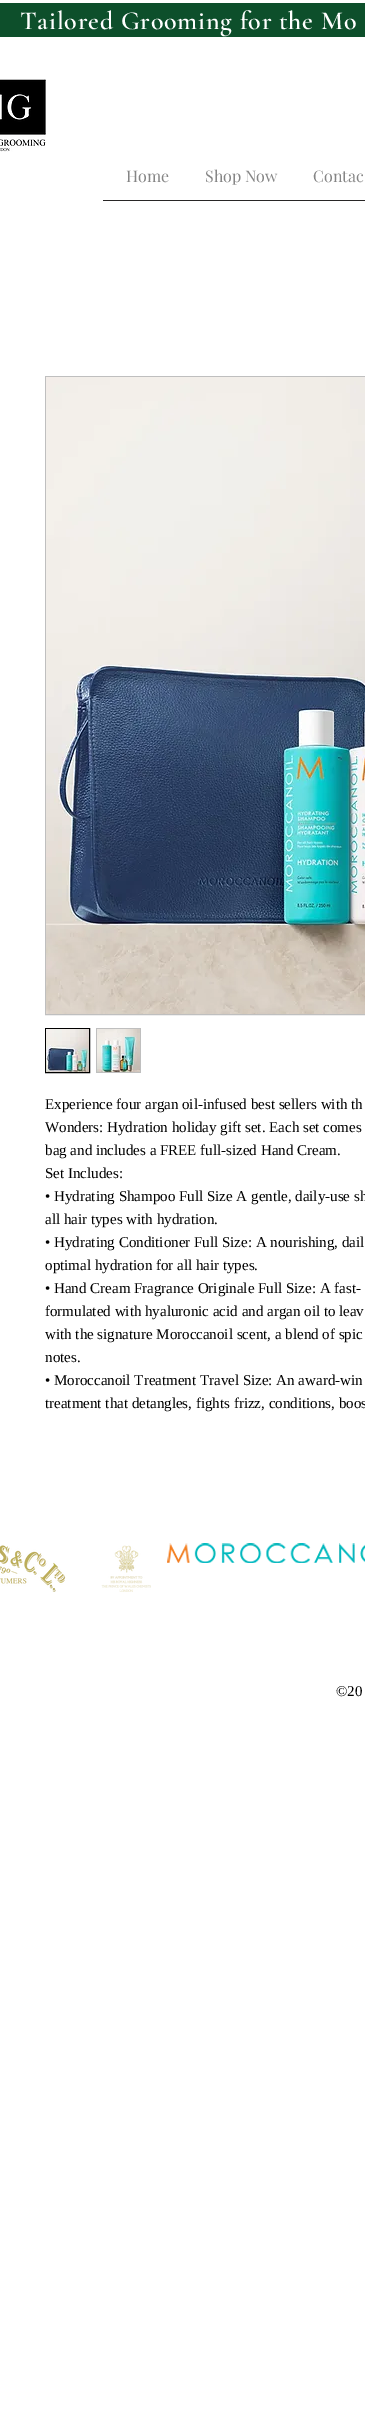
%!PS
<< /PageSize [365 2435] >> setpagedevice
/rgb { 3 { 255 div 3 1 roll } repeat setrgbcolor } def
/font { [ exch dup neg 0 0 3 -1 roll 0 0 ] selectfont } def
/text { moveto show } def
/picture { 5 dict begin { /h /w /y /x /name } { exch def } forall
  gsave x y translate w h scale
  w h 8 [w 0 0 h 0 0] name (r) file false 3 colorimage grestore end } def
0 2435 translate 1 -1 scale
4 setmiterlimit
255 255 255 rgb
0 0 365 2435 rectfill
13 79 43 rgb
0 3 365 34 rectfill
(img_01.rgb) 0 79 46 73 picture
40 38 38 rgb
103 200 262 1 rectfill
191 191 191 rgb
45.5 376.5 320 638 rectstroke
(img_02.rgb) 46 377 319 637 picture
0 0 0 rgb
45.5 1028.5 44 44 rectstroke
(img_03.rgb) 46 1029 43 43 picture
191 191 191 rgb
96 1028 45 45 rectfill
(img_04.rgb) 97 1029 43 43 picture
(img_05.rgb) 0 1545 151 47 picture
(img_06.rgb) 167 1543 198 20 picture
/CormorantGaramond-SemiBold 26 font
255 255 255 rgb
20 29 moveto 0.75 0 (Tailored Grooming for the Mo) ashow
/PlayfairDisplay-Regular 16 font
133 133 133 rgb
(Home) 126 182 text
(Shop Now) 205 182 text
(Contac) 313 182 text
/LiberationSerif-Regular 15 font
0 0 0 rgb
(Experience four argan oil-infused best sellers with th) 45 1109 text
(Wonders: Hydration holiday gift set. Each set comes) 45 1132 text
(bag and includes a FREE full-sized Hand Cream.) 45 1155 text
(Set Includes:) 45 1178 text
(• Hydrating Shampoo Full Size A gentle, daily-use sh) 45 1201 text
(all hair types with hydration.) 45 1224 text
(• Hydrating Conditioner Full Size: A nourishing, dail) 45 1247 text
(optimal hydration for all hair types.) 45 1270 text
(• Hand Cream Fragrance Originale Full Size: A fast-) 45 1293 text
(formulated with hyaluronic acid and argan oil to leav) 45 1316 text
(with the signature Moroccanoil scent, a blend of spic) 45 1339 text
(notes.) 45 1362 text
(• Moroccanoil Treatment Travel Size: An award-win) 45 1385 text
(treatment that detangles, fights frizz, conditions, boos) 45 1408 text
(©20) 336 1696 text
showpage
